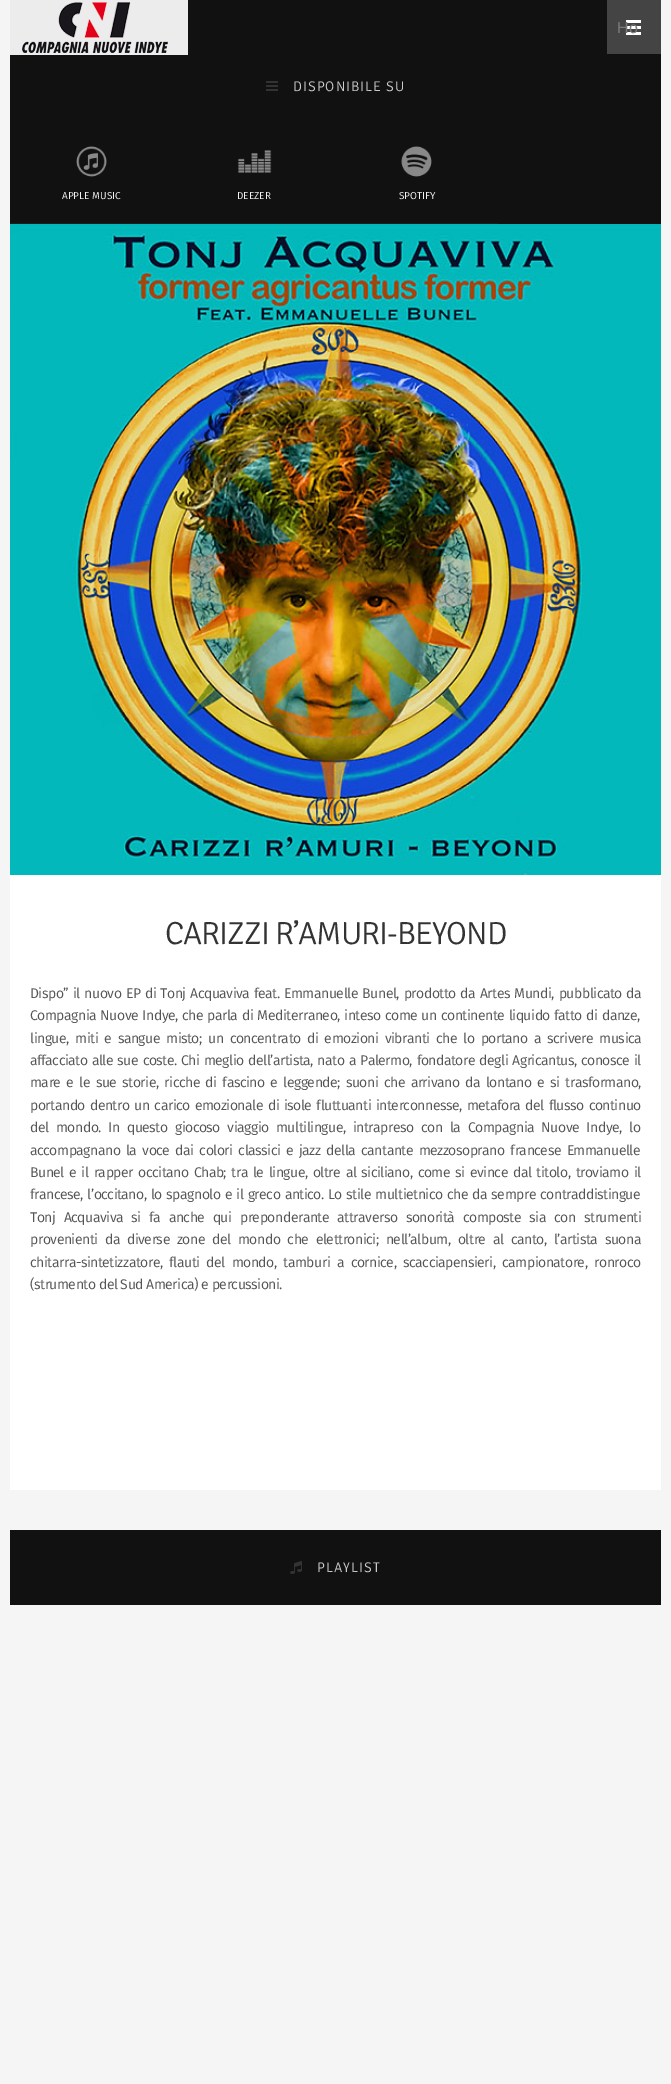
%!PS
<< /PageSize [671 2084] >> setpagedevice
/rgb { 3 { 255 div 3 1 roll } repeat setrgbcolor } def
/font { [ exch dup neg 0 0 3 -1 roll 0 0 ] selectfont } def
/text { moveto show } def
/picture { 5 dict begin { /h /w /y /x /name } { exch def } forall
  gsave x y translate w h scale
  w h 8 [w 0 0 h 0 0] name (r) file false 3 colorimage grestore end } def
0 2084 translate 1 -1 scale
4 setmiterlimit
245 245 245 rgb
0 0 671 2084 rectfill
17 17 17 rgb
188 0 473 55 rectfill
236 236 236 rgb
10 0 178 55 rectfill
(img_01.rgb) 22 2 146 51 picture
68 68 68 rgb
607 0 54 54 rectfill
(img_02.rgb) 626 20 15 15 picture
17 17 17 rgb
10 55 651 169 rectfill
(img_03.rgb) 266 81 12 10 picture
29 29 29 rgb
10 223 488 1 rectfill
(img_04.rgb) 76 146 31 31 picture
(img_05.rgb) 238 150 34 23 picture
(img_06.rgb) 401 146 31 31 picture
255 255 255 rgb
10 875 651 615 rectfill
(img_07.rgb) 10 224 651 651 picture
17 17 17 rgb
10 1530 651 75 rectfill
(img_08.rgb) 290 1561 12 13 picture
/LiberationSans-Regular 16 font
122 122 122 rgb
(Ho) 617 33 text
/Signika-Light 14 font
204 204 204 rgb
293 91 moveto 1 0 (DISPONIBILE SU) ashow
/FiraSans-Regular 10 font
241 241 241 rgb
(APPLE MUSIC) 62 199 text
(DEEZER) 237 199 text
(SPOTIFY) 399 199 text
/Signika-Light 32 font
51 51 51 rgb
165 944 moveto -1 0 (CARIZZI R’AMURI-BEYOND) ashow
/FiraSans-Regular 14 font
85 85 85 rgb
30 998 moveto 1.25 0 32 -0.5 0 (Dispo” il nuovo EP di Tonj Acquaviva feat. Emmanuelle Bunel, prodotto da Artes Mundi, pubblicato da) awidthshow
30 1020 moveto 1 0 32 -0.5 0 (Compagnia Nuove Indye, che parla di Mediterraneo, inteso come un continente liquido fatto di danze,) awidthshow
30 1043 moveto 3 0 32 -0.5 0 (lingue, miti e sangue misto; un concentrato di emozioni vibranti che lo portano a scrivere musica) awidthshow
30 1065 moveto 1.1 0 32 -0.5 0 (affacciato alle sue coste. Chi meglio dell’artista, nato a Palermo, fondatore degli Agricantus, conosce il) awidthshow
30 1087 moveto 2.5 0 32 -0.5 0 (mare e le sue storie, ricche di fascino e leggende; suoni che arrivano da lontano e si trasformano,) awidthshow
30 1110 moveto 1.6 0 32 -0.5 0 (portando dentro un carico emozionale di isole fluttuanti interconnesse, metafora del flusso continuo) awidthshow
30 1132 moveto 4.1 0 32 -0.5 0 (del mondo. In questo giocoso viaggio multilingue, intrapreso con la Compagnia Nuove Indye, lo) awidthshow
30 1155 moveto 2.5 0 32 -0.5 0 (accompagnano la voce dai colori classici e jazz della cantante mezzosoprano francese Emmanuelle) awidthshow
30 1177 moveto 1.9 0 32 -0.5 0 (Bunel e il rapper occitano Chab; tra le lingue, oltre al siciliano, come si evince dal titolo, troviamo il) awidthshow
30 1199 moveto 1.1 0 32 -0.5 0 (francese, l’occitano, lo spagnolo e il greco antico. Lo stile multietnico che da sempre contraddistingue) awidthshow
30 1222 moveto 5.1 0 32 -0.5 0 (Tonj Acquaviva si fa anche qui preponderante attraverso sonorità composte sia con strumenti) awidthshow
30 1244 moveto 4 0 32 -0.5 0 (provenienti da diverse zone del mondo che elettronici; nell’album, oltre al canto, l’artista suona) awidthshow
30 1267 moveto 3.5 0 32 -0.5 0 (chitarra-sintetizzatore, flauti del mondo, tamburi a cornice, scacciapensieri, campionatore, ronroco) awidthshow
30 1289 moveto -0.5 0 (\(strumento del Sud America\) e percussioni.) ashow
/Signika-Light 14 font
204 204 204 rgb
317 1572 moveto 1 0 (PLAYLIST) ashow
showpage
